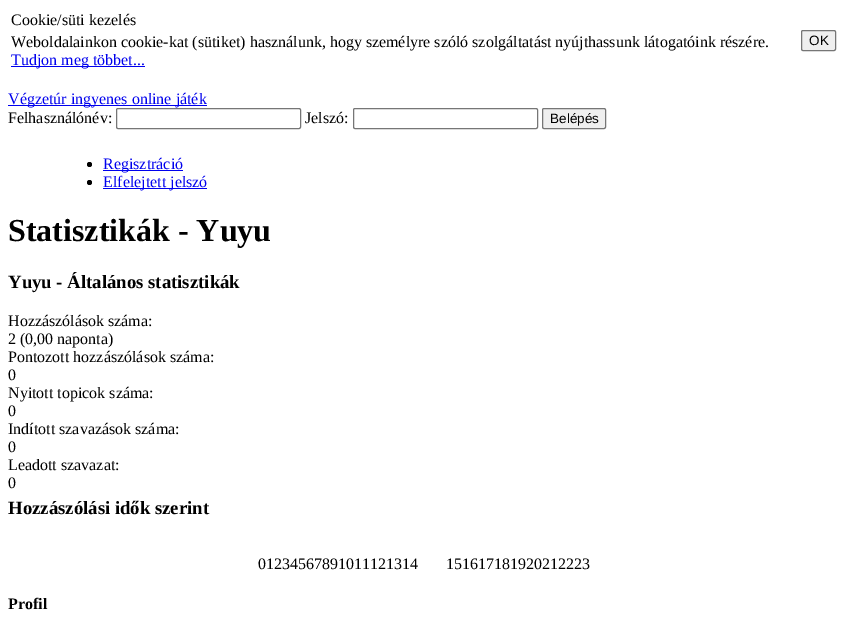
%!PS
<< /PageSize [847 643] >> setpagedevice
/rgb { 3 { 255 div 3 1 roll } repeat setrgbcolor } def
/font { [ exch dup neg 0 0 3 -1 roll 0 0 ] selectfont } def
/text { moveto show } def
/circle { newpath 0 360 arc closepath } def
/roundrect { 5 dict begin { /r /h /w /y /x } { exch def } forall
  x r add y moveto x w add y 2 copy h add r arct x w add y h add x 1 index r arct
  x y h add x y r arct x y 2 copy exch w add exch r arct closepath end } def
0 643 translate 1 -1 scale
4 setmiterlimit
255 255 255 rgb
0 0 847 643 rectfill
239 239 239 rgb
801.5 30.5 34 20 1.5 roundrect gsave fill grestore
118 118 118 rgb
stroke
0 0 238 rgb
11 66 134 1 rectfill
8 105 199 1 rectfill
118 118 118 rgb
116.5 108.5 184 20 1.5 roundrect stroke
353.5 108.5 184 20 1.5 roundrect stroke
239 239 239 rgb
542.5 108.5 63 20 1.5 roundrect gsave fill grestore
118 118 118 rgb
stroke
0 0 0 rgb
89.5 164.5 2.5 circle fill
0 0 238 rgb
103 170 80 1 rectfill
0 0 0 rgb
89.5 182.5 2.5 circle fill
0 0 238 rgb
103 188 104 1 rectfill
/LiberationSerif-Regular 16 font
0 0 0 rgb
(Cookie/süti kezelés) 11 25 text
/LiberationSans-Regular 13.5 font
(OK) 809 45 text
/LiberationSerif-Regular 16 font
(Weboldalainkon cookie-kat \(sütiket\) használunk, hogy személyre szóló szolgáltatást nyújthassunk látogatóink részére.) 11 47 text
0 0 238 rgb
(Tudjon meg többet...) 11 65 text
(Végzetúr ingyenes online játék) 8 104 text
0 0 0 rgb
(Felhasználónév:) 8 123 text
(Jelszó:) 305 123 text
/LiberationSans-Regular 13.5 font
(Belépés) 550 123 text
/LiberationSerif-Regular 16 font
0 0 238 rgb
(Regisztráció) 103 169 text
(Elfelejtett jelszó) 103 187 text
/LiberationSerif-Bold 32 font
0 0 0 rgb
(Statisztikák - Yuyu) 8 241 text
/LiberationSerif-Bold 18.75 font
(Yuyu - Általános statisztikák) 8 288 text
/LiberationSerif-Regular 16 font
(Hozzászólások száma:) 8 326 text
(2 \(0,00 naponta\)) 8 344 text
(Pontozott hozzászólások száma:) 8 362 text
(0) 8 380 text
(Nyitott topicok száma:) 8 398 text
(0) 8 416 text
(Indított szavazások száma:) 8 434 text
(0) 8 452 text
(Leadott szavazat:) 8 470 text
(0) 8 488 text
/LiberationSerif-Bold 18.75 font
(Hozzászólási idők szerint) 8 514 text
/LiberationSerif-Regular 16 font
(01234567891011121314) 258 569 text
(151617181920212223) 446 569 text
/LiberationSerif-Bold 16 font
(Profil) 8 609 text
showpage
